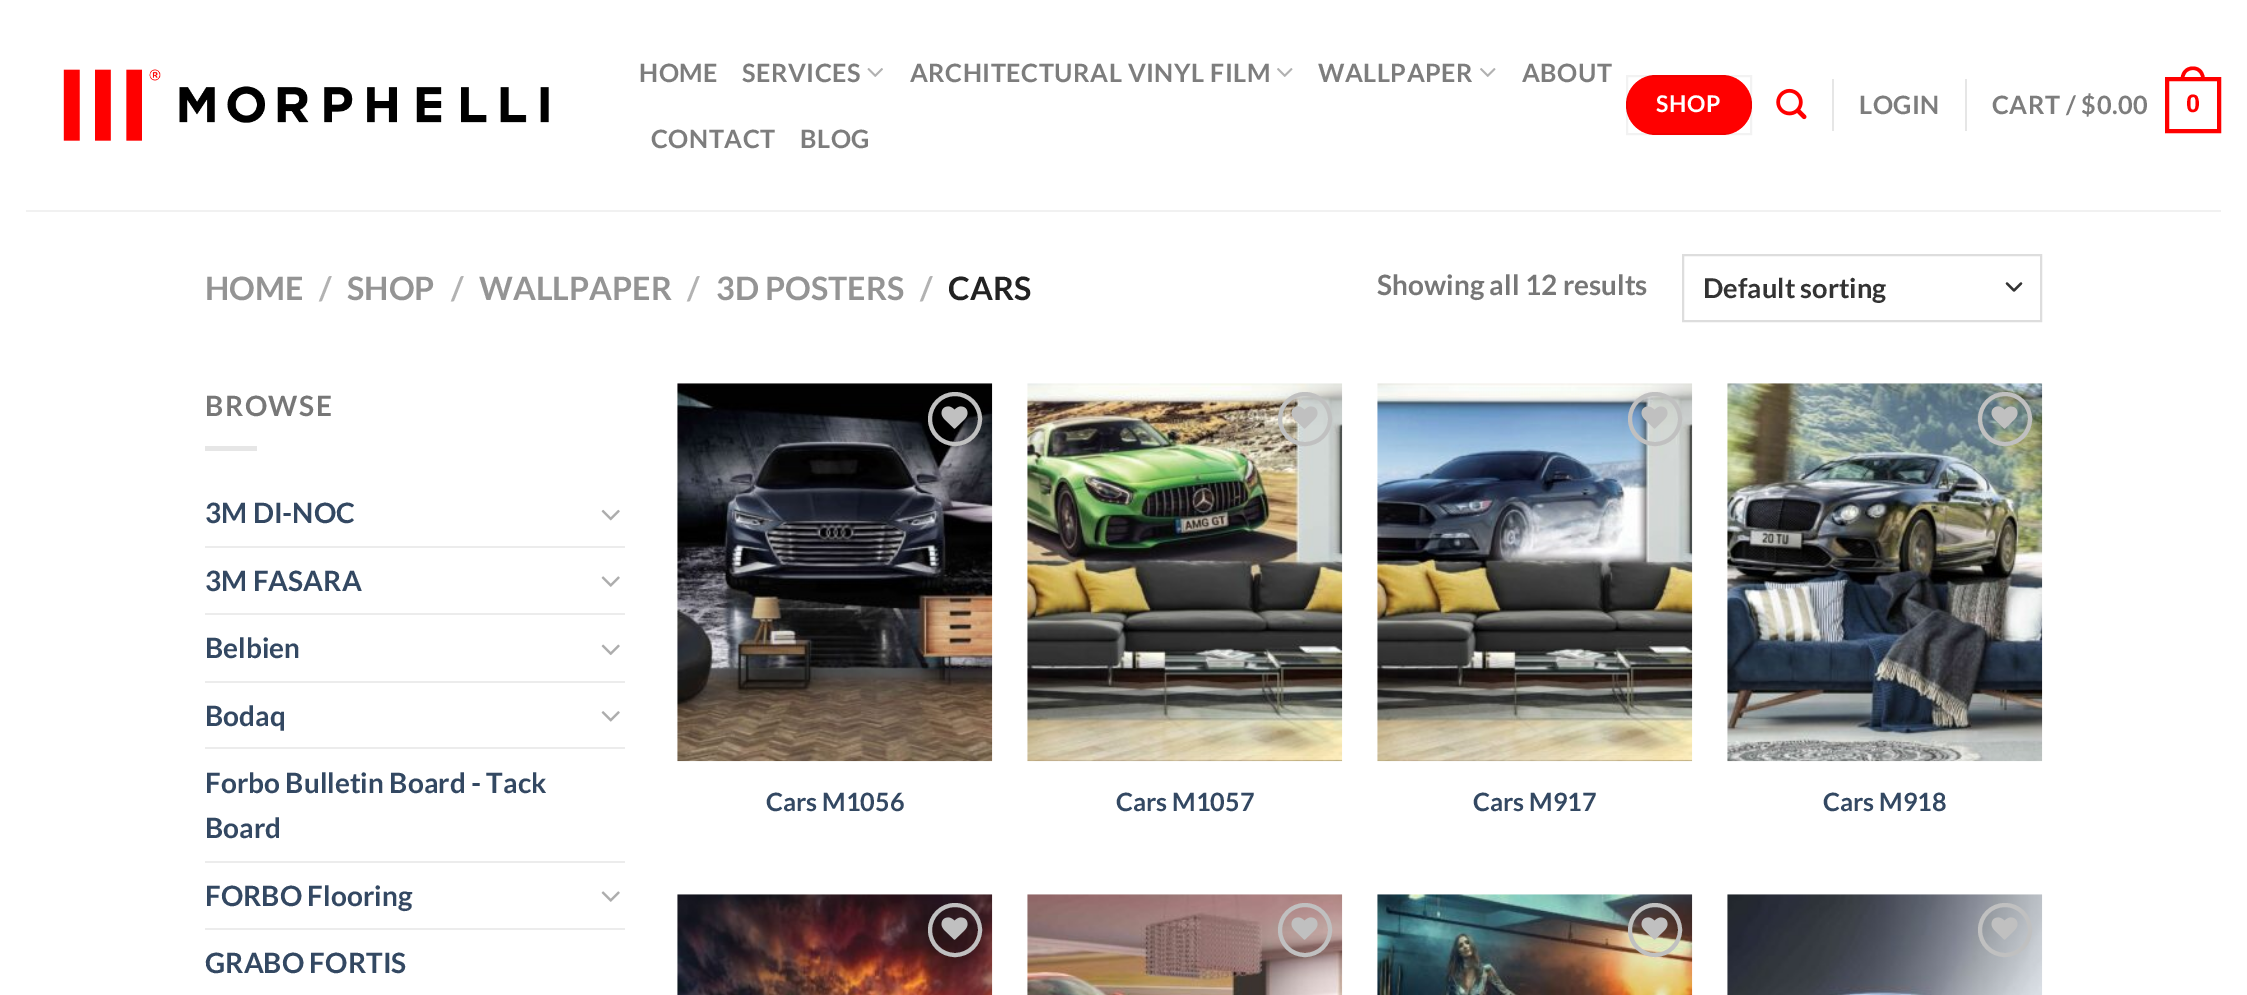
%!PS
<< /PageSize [2247 995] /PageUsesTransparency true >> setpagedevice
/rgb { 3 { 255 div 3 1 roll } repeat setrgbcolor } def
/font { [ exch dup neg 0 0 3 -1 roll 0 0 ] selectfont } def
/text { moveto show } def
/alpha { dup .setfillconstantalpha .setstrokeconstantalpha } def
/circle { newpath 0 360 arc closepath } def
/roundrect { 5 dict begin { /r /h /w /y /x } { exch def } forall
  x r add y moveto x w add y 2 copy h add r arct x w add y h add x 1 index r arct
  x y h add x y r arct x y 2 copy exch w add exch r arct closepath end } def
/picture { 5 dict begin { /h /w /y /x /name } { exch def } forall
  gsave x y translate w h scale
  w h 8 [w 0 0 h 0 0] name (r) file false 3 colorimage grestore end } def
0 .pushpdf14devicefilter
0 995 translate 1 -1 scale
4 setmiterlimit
255 255 255 rgb
0 0 2247 995 rectfill
(img_01.rgb) 63 69 486 72 picture
(img_02.rgb) 867 68 16 9 picture
(img_03.rgb) 1277 68 16 9 picture
(img_03.rgb) 1480 68 16 9 picture
255 0 0 rgb
1626 75 126 60 30 roundrect fill
0.05 alpha
0 0 0 rgb
2 setlinewidth
1627 76 124 58 rectstroke
1 alpha
(img_04.rgb) 1776 88 31 32 picture
230 230 230 rgb
1832 79 2 52 rectfill
1965 79 2 52 rectfill
255 0 0 rgb
4 setlinewidth
2167 79 52 52 rectstroke
2193 66.5 moveto 8 0 12 6.5 12 14 rcurveto -24.5 0 rlineto 0 -7.5 4 -14 12.5 -14 rcurveto closepath 2193 70 moveto 6 0 8.5 5 8.5 10.5 rcurveto -17.5 0 rlineto 0 -5.5 2.5 -10.5 9 -10.5 rcurveto closepath eofill
241 241 241 rgb
26 210 2195 2 rectfill
51 51 51 rgb
2.3 setlinewidth
1 setlinecap
1 setlinejoin
2007 283.5 moveto 7 7 rlineto 7 -7 rlineto stroke
221 221 221 rgb
2 setlinewidth
0 setlinecap
0 setlinejoin
1683 255 358 66 rectstroke
230 230 230 rgb
205 446 52 5 rectfill
(img_05.rgb) 601 509 19 12 picture
236 236 236 rgb
205 546 420 2 rectfill
(img_06.rgb) 601 576 19 11 picture
205 613 420 2 rectfill
(img_07.rgb) 601 644 19 12 picture
205 681 420 2 rectfill
(img_08.rgb) 601 711 19 11 picture
205 747 420 2 rectfill
205 861 420 2 rectfill
(img_06.rgb) 601 891 19 11 picture
205 928 420 2 rectfill
(img_09.rgb) 677 383 316 379 picture
192 192 192 rgb
4 setlinewidth
955 419 25 circle stroke
(img_10.rgb) 941 406 27 23 picture
(img_11.rgb) 1027 383 316 379 picture
1305 419 25 circle stroke
(img_12.rgb) 1291 406 27 23 picture
(img_13.rgb) 1377 383 316 379 picture
1655 419 25 circle stroke
(img_14.rgb) 1641 406 27 23 picture
(img_15.rgb) 1727 383 316 379 picture
2005 419 25 circle stroke
(img_16.rgb) 1991 406 27 23 picture
(img_17.rgb) 677 894 316 101 picture
955 930 25 circle stroke
(img_18.rgb) 941 917 27 23 picture
(img_19.rgb) 1027 894 316 101 picture
1305 930 25 circle stroke
(img_20.rgb) 1291 917 27 23 picture
(img_21.rgb) 1377 894 316 101 picture
1655 930 25 circle stroke
(img_22.rgb) 1641 917 27 23 picture
(img_23.rgb) 1727 894 316 101 picture
2005 930 25 circle stroke
(img_24.rgb) 1991 917 27 23 picture
/Lato-Bold 25.25 font
125 125 125 rgb
639 82 moveto 0.5 0 (HOME) ashow
742 82 moveto 0.5 0 (SERVICES) ashow
910 82 moveto 0.5 0 (ARCHITECTURAL VINYL FILM) ashow
1318 82 moveto 0.5 0 (WALLPAPER) ashow
1522 82 moveto 0.5 0 (ABOUT) ashow
651 148 moveto 0.5 0 (CONTACT) ashow
800 148 moveto 0.5 0 (BLOG) ashow
/Lato-Bold 23 font
255 255 255 rgb
1656 112 moveto 0.5 0 (SHOP) ashow
/Lato-Bold 25.25 font
125 125 125 rgb
1859 114 moveto 0.5 0 (LOGIN) ashow
1992 114 moveto 0.5 0 (CART / $0.00) ashow
/LiberationSans-Bold 25.25 font
255 0 0 rgb
2186 112 moveto 0.5 0 (0) ashow
/Lato-Bold 32.25 font
148 148 148 rgb
(HOME) 205 300 text
178 178 178 rgb
(/) 319 300 text
148 148 148 rgb
(SHOP) 347 300 text
178 178 178 rgb
(/) 451 300 text
148 148 148 rgb
(WALLPAPER) 479 300 text
178 178 178 rgb
(/) 687 300 text
148 148 148 rgb
(3D POSTERS) 716 300 text
178 178 178 rgb
(/) 920 300 text
34 34 34 rgb
(CARS) 948 300 text
/Lato-Bold 28 font
119 119 119 rgb
(Showing all 12 results) 1377 295 text
/Lato-Bold 27.25 font
51 51 51 rgb
(Default sorting) 1703 298 text
/Lato-Bold 28 font
119 119 119 rgb
205 416 moveto 1.5 0 (BROWSE) ashow
51 72 98 rgb
(3M DI-NOC) 205 523 text
(3M FASARA) 205 591 text
(Belbien) 205 658 text
(Bodaq) 205 726 text
(Forbo Bulletin Board - Tack) 205 793 text
(Board) 205 838 text
(FORBO Flooring) 205 906 text
(GRABO FORTIS) 205 973 text
/Lato-Bold 25.25 font
(Cars M1056) 766 811 text
(Cars M1057) 1116 811 text
(Cars M917) 1473 811 text
(Cars M918) 1823 811 text
.poppdf14devicefilter showpage
